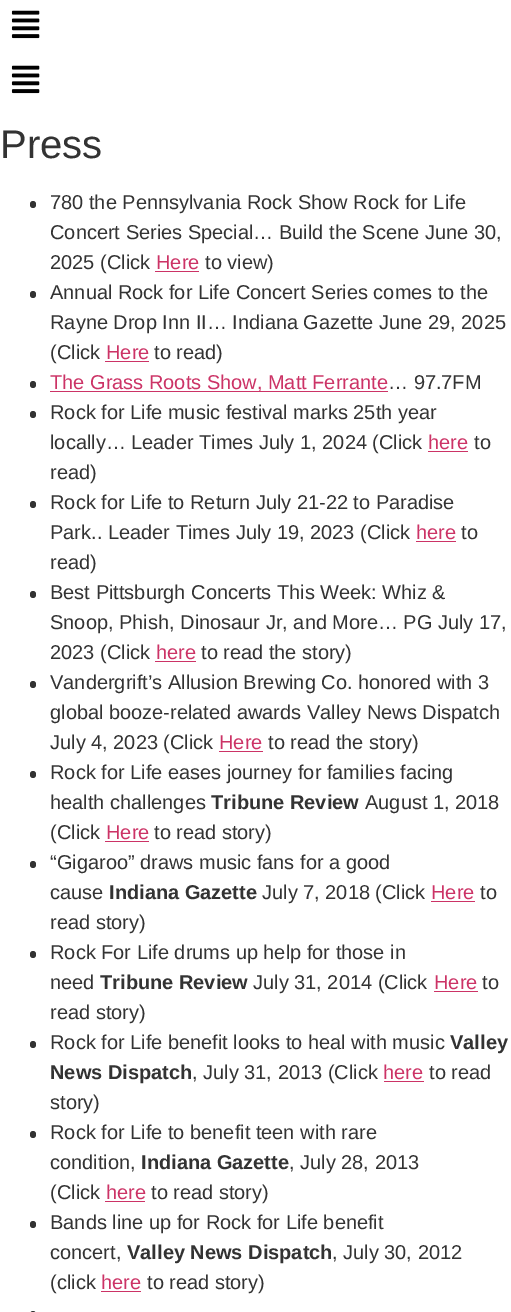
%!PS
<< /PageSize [511 1312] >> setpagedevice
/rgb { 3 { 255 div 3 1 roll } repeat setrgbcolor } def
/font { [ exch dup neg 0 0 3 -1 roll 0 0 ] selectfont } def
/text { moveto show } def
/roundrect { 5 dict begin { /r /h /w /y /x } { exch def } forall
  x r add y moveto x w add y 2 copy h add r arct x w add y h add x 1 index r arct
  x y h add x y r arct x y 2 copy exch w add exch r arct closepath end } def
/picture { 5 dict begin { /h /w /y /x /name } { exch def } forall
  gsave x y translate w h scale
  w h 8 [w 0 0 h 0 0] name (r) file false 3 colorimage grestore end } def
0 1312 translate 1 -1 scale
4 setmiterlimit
255 255 255 rgb
0 0 511 1312 rectfill
(img_01.rgb) 11 10 29 29 picture
(img_01.rgb) 11 65 29 29 picture
51 51 51 rgb
30 201 6 7 3 roundrect fill
204 51 102 rgb
155 271 44 1 rectfill
51 51 51 rgb
30 291 6 7 3 roundrect fill
204 51 102 rgb
105 361 44 1 rectfill
51 51 51 rgb
30 381 6 7 3 roundrect fill
204 51 102 rgb
50 391 338 1 rectfill
51 51 51 rgb
30 411 6 7 3 roundrect fill
204 51 102 rgb
428 451 40 1 rectfill
51 51 51 rgb
30 501 6 7 3 roundrect fill
204 51 102 rgb
416 541 40 1 rectfill
51 51 51 rgb
30 591 6 7 3 roundrect fill
204 51 102 rgb
155 661 41 1 rectfill
51 51 51 rgb
30 681 6 7 3 roundrect fill
204 51 102 rgb
219 751 44 1 rectfill
51 51 51 rgb
30 771 6 7 3 roundrect fill
204 51 102 rgb
105 841 44 1 rectfill
51 51 51 rgb
30 861 6 7 3 roundrect fill
204 51 102 rgb
431 901 44 1 rectfill
51 51 51 rgb
30 951 6 7 3 roundrect fill
204 51 102 rgb
434 991 44 1 rectfill
51 51 51 rgb
30 1041 6 7 3 roundrect fill
204 51 102 rgb
384 1081 40 1 rectfill
51 51 51 rgb
30 1131 6 7 3 roundrect fill
204 51 102 rgb
105 1201 40 1 rectfill
51 51 51 rgb
30 1221 6 7 3 roundrect fill
204 51 102 rgb
101 1291 40 1 rectfill
51 51 51 rgb
30 1311 6 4 3 roundrect fill
/LiberationSans-Regular 40 font
(Press) 0 158 text
/LiberationSans-Regular 20 font
(780 the Pennsylvania Rock Show Rock for Life) 50 209 text
(Concert Series Special… Build the Scene June 30,) 50 239 text
(2025 \(Click) 50 269 text
204 51 102 rgb
(Here) 156 269 text
51 51 51 rgb
(to view\)) 205 269 text
(Annual Rock for Life Concert Series comes to the) 50 299 text
(Rayne Drop Inn II… Indiana Gazette June 29, 2025) 50 329 text
(\(Click) 50 359 text
204 51 102 rgb
(Here) 106 359 text
51 51 51 rgb
(to read\)) 154 359 text
204 51 102 rgb
(The Grass Roots Show, Matt Ferrante) 50 389 text
51 51 51 rgb
(… 97.7FM) 388 389 text
(Rock for Life music festival marks 25th year) 50 419 text
(locally… Leader Times July 1, 2024 \(Click) 50 449 text
204 51 102 rgb
(here) 428 449 text
51 51 51 rgb
(to) 474 449 text
(read\)) 50 479 text
(Rock for Life to Return July 21-22 to Paradise) 50 509 text
(Park.. Leader Times July 19, 2023 \(Click) 50 539 text
204 51 102 rgb
(here) 416 539 text
51 51 51 rgb
(to) 461 539 text
(read\)) 50 569 text
(Best Pittsburgh Concerts This Week: Whiz &) 50 599 text
(Snoop, Phish, Dinosaur Jr, and More… PG July 17,) 50 629 text
(2023 \(Click) 50 659 text
204 51 102 rgb
(here) 156 659 text
51 51 51 rgb
(to read the story\)) 201 659 text
(Vandergrift’s Allusion Brewing Co. honored with 3) 50 689 text
(global booze-related awards Valley News Dispatch) 50 719 text
(July 4, 2023 \(Click) 50 749 text
204 51 102 rgb
(Here) 219 749 text
51 51 51 rgb
(to read the story\)) 268 749 text
(Rock for Life eases journey for families facing) 50 779 text
(health challenges) 50 809 text
/LiberationSans-Bold 20 font
(Tribune Review) 211 809 text
/LiberationSans-Regular 20 font
(August 1, 2018) 365 809 text
(\(Click) 50 839 text
204 51 102 rgb
(Here) 106 839 text
51 51 51 rgb
(to read story\)) 154 839 text
(“Gigaroo” draws music fans for a good) 50 869 text
(cause) 50 899 text
/LiberationSans-Bold 20 font
(Indiana Gazette) 109 899 text
/LiberationSans-Regular 20 font
(July 7, 2018 \(Click) 262 899 text
204 51 102 rgb
(Here) 431 899 text
51 51 51 rgb
(to) 480 899 text
(read story\)) 50 929 text
(Rock For Life drums up help for those in) 50 959 text
(need) 50 989 text
/LiberationSans-Bold 20 font
(Tribune Review) 100 989 text
/LiberationSans-Regular 20 font
(July 31, 2014 \(Click) 253 989 text
204 51 102 rgb
(Here) 434 989 text
51 51 51 rgb
(to) 482 989 text
(read story\)) 50 1019 text
(Rock for Life benefit looks to heal with music) 50 1049 text
/LiberationSans-Bold 20 font
(Valley) 450 1049 text
(News Dispatch) 50 1079 text
/LiberationSans-Regular 20 font
(, July 31, 2013 \(Click) 192 1079 text
204 51 102 rgb
(here) 383 1079 text
51 51 51 rgb
(to read) 429 1079 text
(story\)) 50 1109 text
(Rock for Life to benefit teen with rare) 50 1139 text
(condition,) 50 1169 text
/LiberationSans-Bold 20 font
(Indiana Gazette) 141 1169 text
/LiberationSans-Regular 20 font
(, July 28, 2013) 289 1169 text
(\(Click) 50 1199 text
204 51 102 rgb
(here) 106 1199 text
51 51 51 rgb
(to read story\)) 151 1199 text
(Bands line up for Rock for Life benefit) 50 1229 text
(concert,) 50 1259 text
/LiberationSans-Bold 20 font
(Valley News Dispatch) 127 1259 text
/LiberationSans-Regular 20 font
(, July 30, 2012) 332 1259 text
(\(click) 50 1289 text
204 51 102 rgb
(here) 101 1289 text
51 51 51 rgb
(to read story\)) 147 1289 text
showpage
